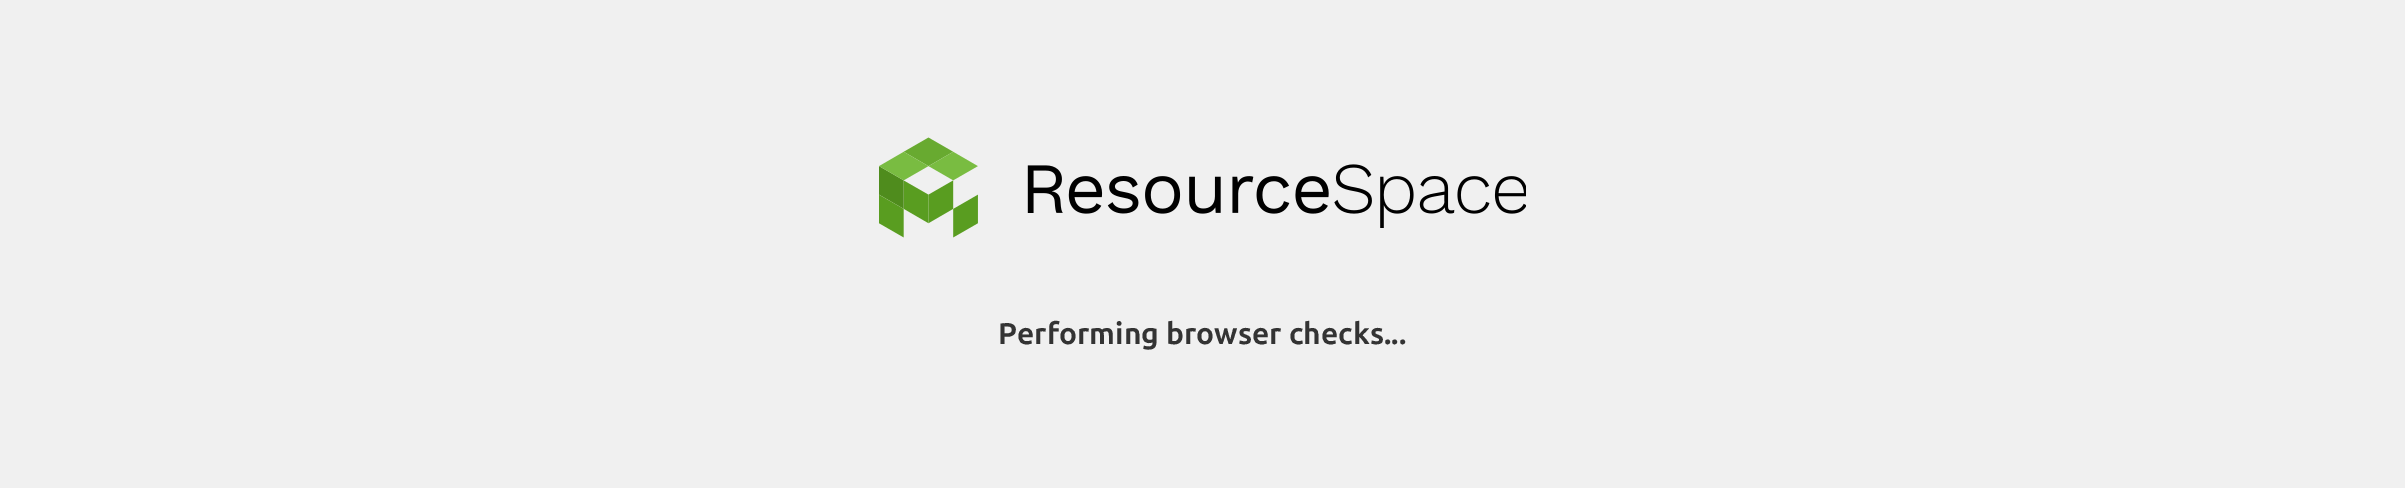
%!PS
<< /PageSize [2405 488] >> setpagedevice
/rgb { 3 { 255 div 3 1 roll } repeat setrgbcolor } def
/font { [ exch dup neg 0 0 3 -1 roll 0 0 ] selectfont } def
/text { moveto show } def
/picture { 5 dict begin { /h /w /y /x /name } { exch def } forall
  gsave x y translate w h scale
  w h 8 [w 0 0 h 0 0] name (r) file false 3 colorimage grestore end } def
0 488 translate 1 -1 scale
4 setmiterlimit
240 240 240 rgb
0 0 2405 488 rectfill
(img_01.rgb) 879 137 647 101 picture
/Ubuntu-Bold 30 font
51 51 51 rgb
(Performing browser checks...) 998 344 text
showpage
